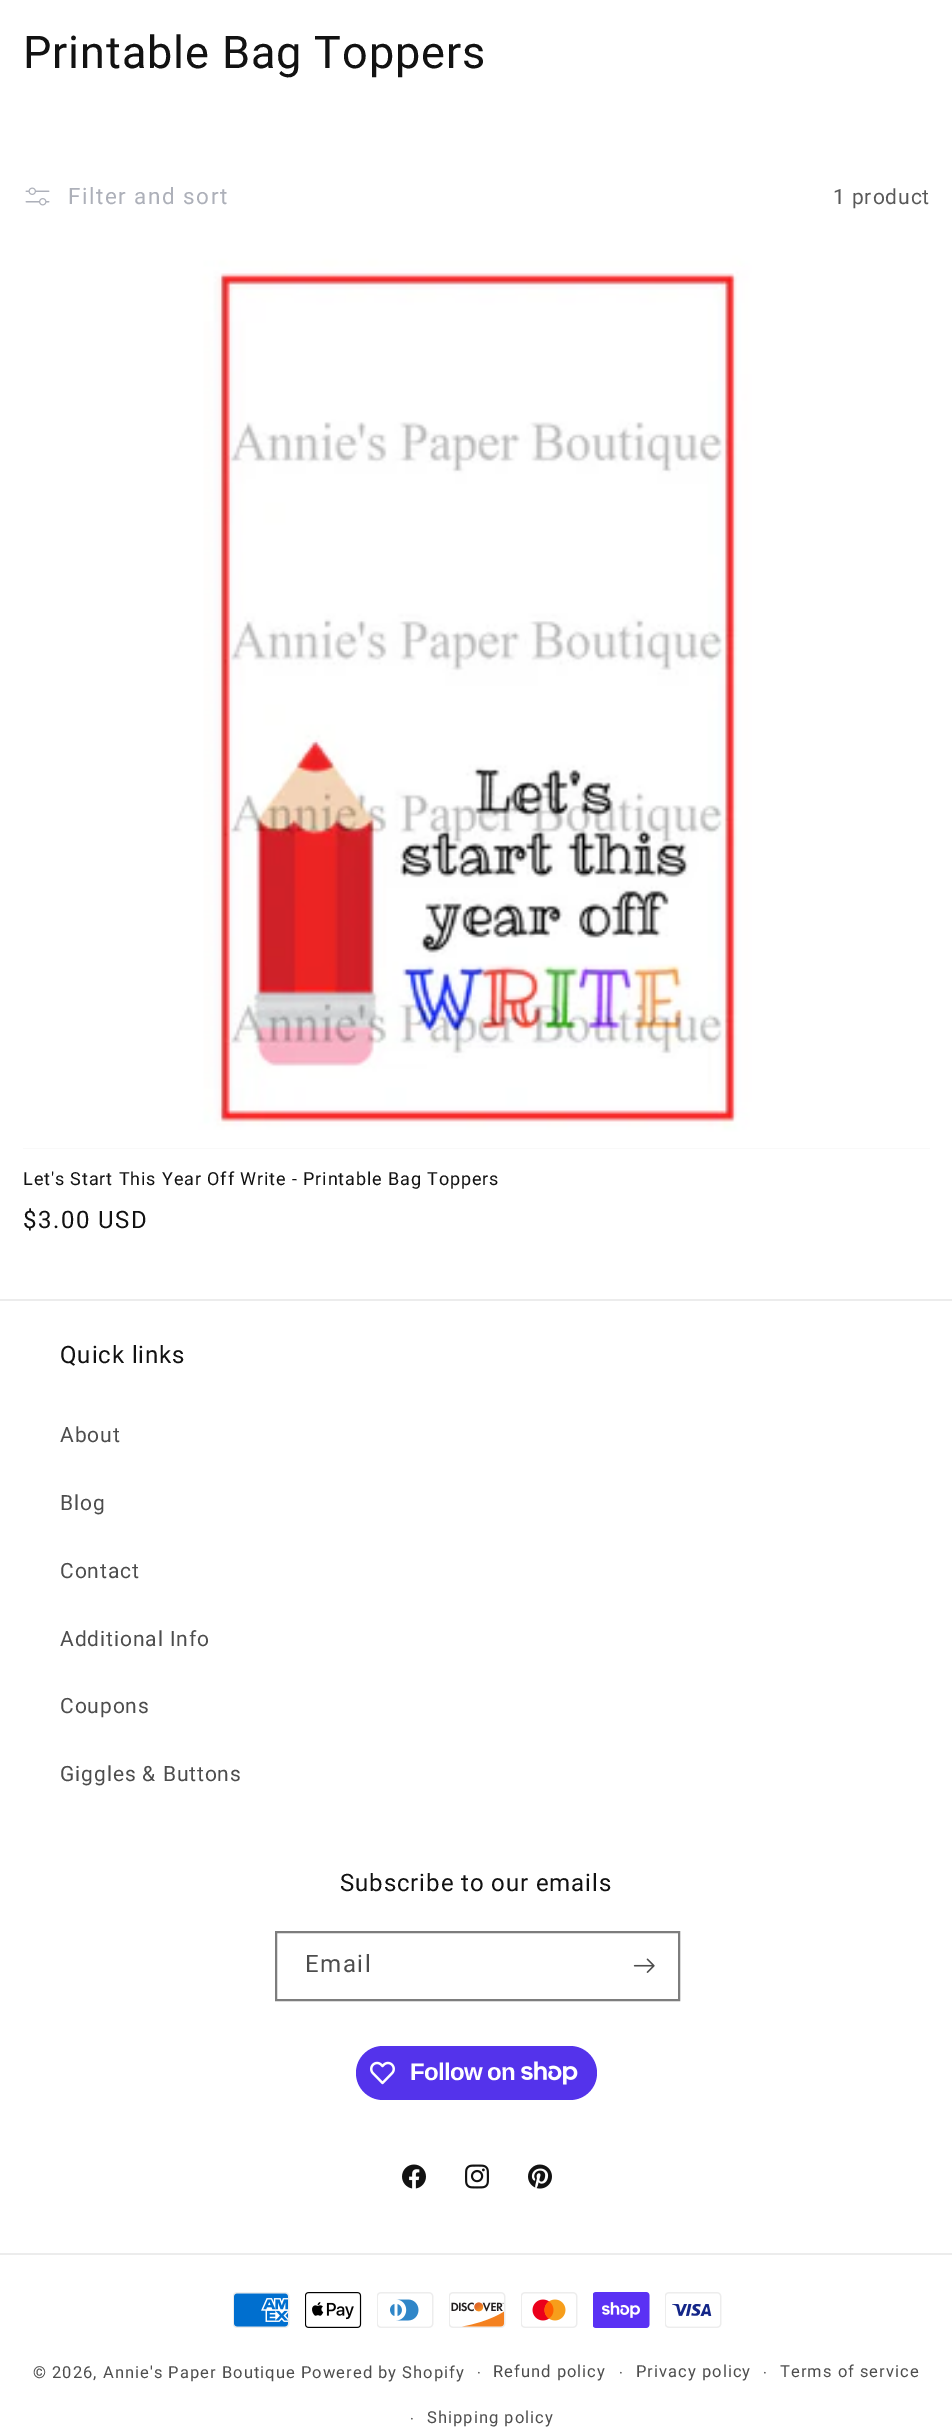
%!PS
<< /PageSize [952 2436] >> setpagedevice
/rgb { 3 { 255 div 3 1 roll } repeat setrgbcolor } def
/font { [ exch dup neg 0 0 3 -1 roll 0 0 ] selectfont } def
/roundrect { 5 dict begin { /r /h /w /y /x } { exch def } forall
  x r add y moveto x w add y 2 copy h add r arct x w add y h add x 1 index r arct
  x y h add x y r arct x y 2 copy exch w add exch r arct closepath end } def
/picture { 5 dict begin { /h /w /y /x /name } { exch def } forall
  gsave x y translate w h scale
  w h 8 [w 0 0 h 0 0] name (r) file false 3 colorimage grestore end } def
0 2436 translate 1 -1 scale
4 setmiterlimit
255 255 255 rgb
0 0 952 2436 rectfill
(img_01.rgb) 25 187 25 19 picture
243 243 243 rgb
23 1148 907 1 rectfill
(img_02.rgb) 23 242 907 907 picture
236 236 236 rgb
0 1299 952 2 rectfill
125 125 125 rgb
2 setlinewidth
276 1932 403 68 rectstroke
(img_03.rgb) 633 1958 22 15 picture
84 51 235 rgb
356 2046 241 54 27 roundrect fill
(img_04.rgb) 370 2061 25 24 picture
(img_05.rgb) 521 2061 57 24 picture
(img_06.rgb) 402 2164 24 25 picture
(img_07.rgb) 465 2164 24 25 picture
(img_08.rgb) 528 2164 24 25 picture
236 236 236 rgb
0 2253 952 2 rectfill
(img_09.rgb) 233 2292 57 36 picture
(img_10.rgb) 305 2292 57 36 picture
(img_11.rgb) 377 2292 57 36 picture
(img_12.rgb) 449 2292 57 36 picture
(img_13.rgb) 521 2292 57 36 picture
(img_14.rgb) 593 2292 57 36 picture
(img_15.rgb) 665 2292 57 36 picture
/Roboto-Regular 45 font
18 18 18 rgb
23 68 moveto 0.9 0 (Printable Bag Toppers) ashow
/Roboto-Regular 22.5 font
173 176 185 rgb
68 204 moveto 1.5 0 (Filter and sort) ashow
/Roboto-Regular 21 font
89 89 89 rgb
833 204 moveto 0.9 0 (1 product) ashow
/Roboto-Regular 18 font
18 18 18 rgb
23 1185 moveto 0.9 0 (Let's Start This Year Off Write - Printable Bag Toppers) ashow
/Roboto-Regular 24 font
23 1228 moveto 1.5 0 ($3.00 USD) ashow
60 1363 moveto 0.9 0 (Quick links) ashow
/Roboto-Regular 21 font
77 77 77 rgb
60 1442 moveto 0.9 0 (About) ashow
60 1510 moveto 0.9 0 (Blog) ashow
60 1578 moveto 0.9 0 (Contact) ashow
60 1646 moveto 0.9 0 (Additional Info) ashow
60 1713 moveto 0.9 0 (Coupons) ashow
60 1781 moveto 0.9 0 (Giggles & Buttons) ashow
/Roboto-Regular 24 font
18 18 18 rgb
340 1891 moveto 0.9 0 (Subscribe to our emails) ashow
77 77 77 rgb
305 1972 moveto 1.5 0 (Email) ashow
/LiberationSans-Bold 24 font
255 255 255 rgb
410 2080 moveto -0.75 0 (Follow on) ashow
/Roboto-Regular 16.5 font
77 77 77 rgb
33 2378 moveto 1.05 0 (© 2026, Annie's Paper Boutique) ashow
301 2378 moveto 1.05 0 (Powered by Shopify) ashow
/Roboto-Regular 15 font
477 2378 moveto 1.05 0 (·) ashow
/Roboto-Regular 16.5 font
493 2377 moveto 1.05 0 (Refund policy) ashow
/Roboto-Regular 15 font
619 2378 moveto 1.05 0 (·) ashow
/Roboto-Regular 16.5 font
636 2377 moveto 1.05 0 (Privacy policy) ashow
/Roboto-Regular 15 font
763 2378 moveto 1.05 0 (·) ashow
/Roboto-Regular 16.5 font
780 2377 moveto 1.05 0 (Terms of service) ashow
/Roboto-Regular 15 font
410 2424 moveto 1.05 0 (·) ashow
/Roboto-Regular 16.5 font
427 2423 moveto 1.05 0 (Shipping policy) ashow
showpage
